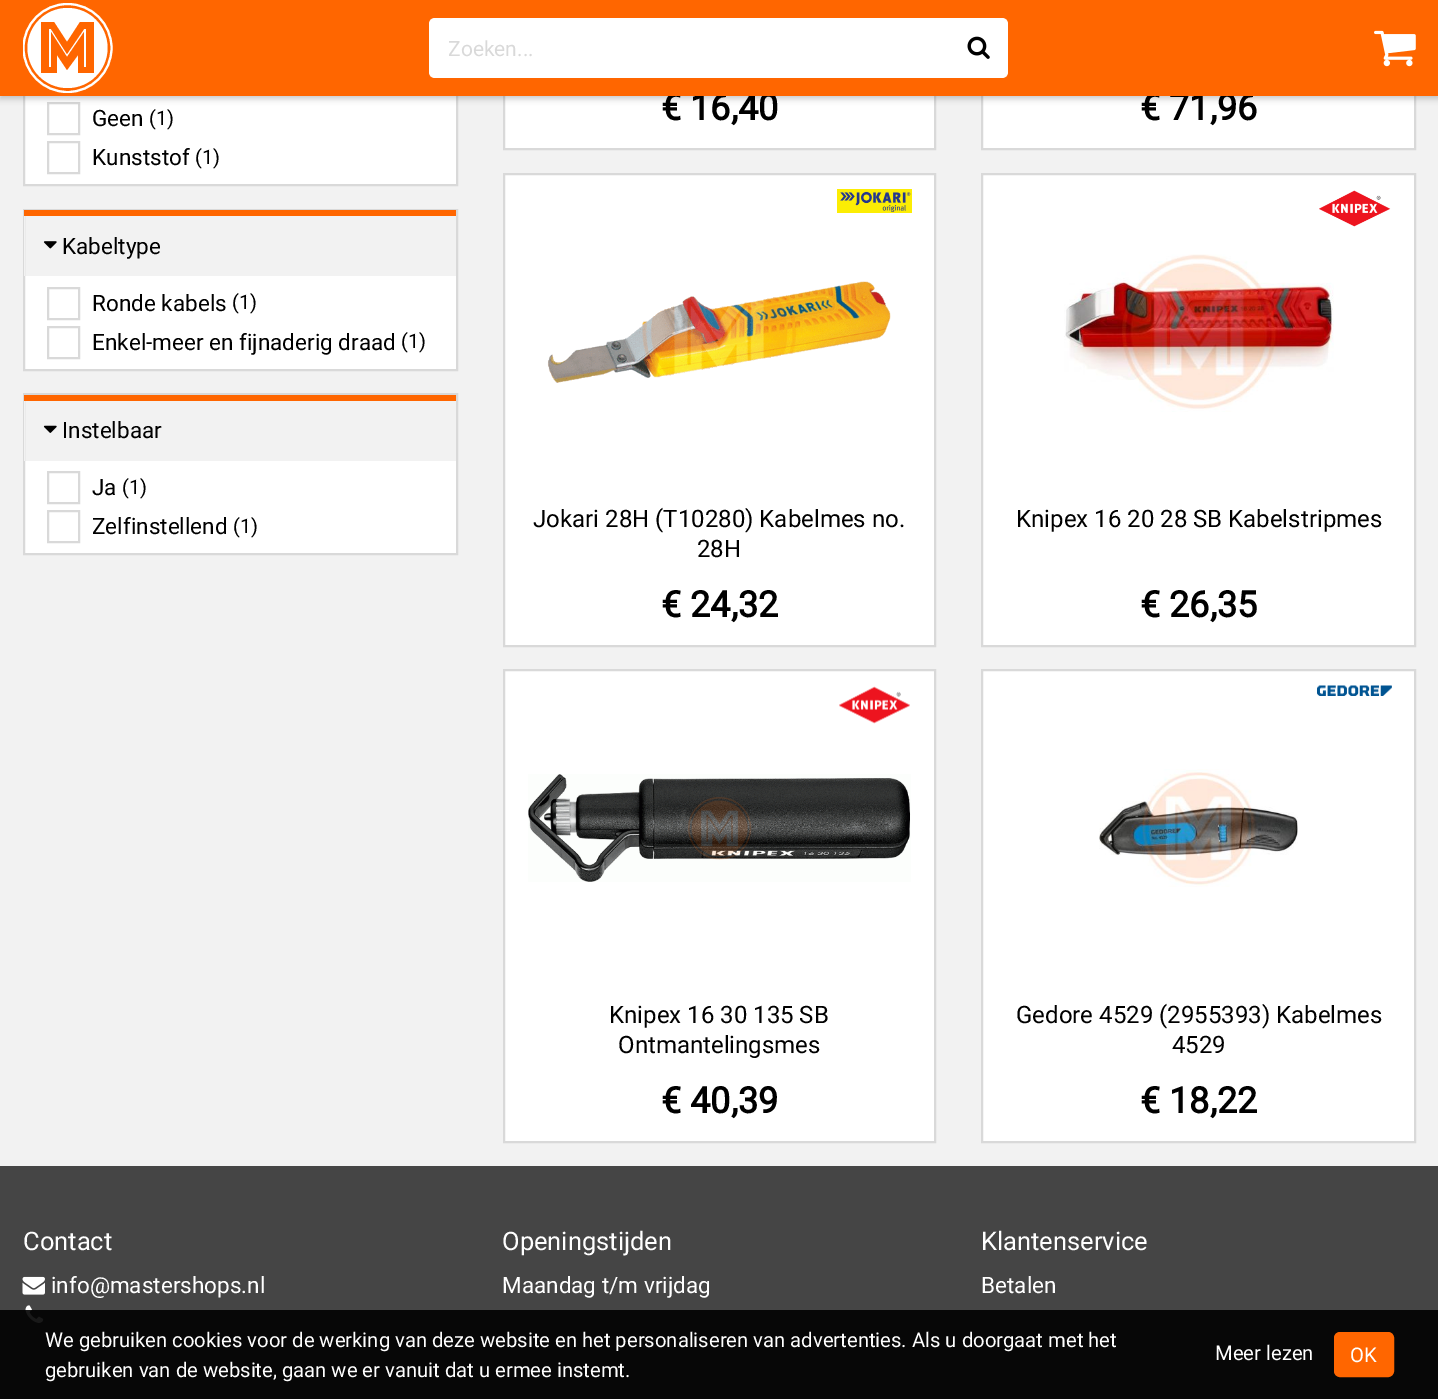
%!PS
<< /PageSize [1438 1399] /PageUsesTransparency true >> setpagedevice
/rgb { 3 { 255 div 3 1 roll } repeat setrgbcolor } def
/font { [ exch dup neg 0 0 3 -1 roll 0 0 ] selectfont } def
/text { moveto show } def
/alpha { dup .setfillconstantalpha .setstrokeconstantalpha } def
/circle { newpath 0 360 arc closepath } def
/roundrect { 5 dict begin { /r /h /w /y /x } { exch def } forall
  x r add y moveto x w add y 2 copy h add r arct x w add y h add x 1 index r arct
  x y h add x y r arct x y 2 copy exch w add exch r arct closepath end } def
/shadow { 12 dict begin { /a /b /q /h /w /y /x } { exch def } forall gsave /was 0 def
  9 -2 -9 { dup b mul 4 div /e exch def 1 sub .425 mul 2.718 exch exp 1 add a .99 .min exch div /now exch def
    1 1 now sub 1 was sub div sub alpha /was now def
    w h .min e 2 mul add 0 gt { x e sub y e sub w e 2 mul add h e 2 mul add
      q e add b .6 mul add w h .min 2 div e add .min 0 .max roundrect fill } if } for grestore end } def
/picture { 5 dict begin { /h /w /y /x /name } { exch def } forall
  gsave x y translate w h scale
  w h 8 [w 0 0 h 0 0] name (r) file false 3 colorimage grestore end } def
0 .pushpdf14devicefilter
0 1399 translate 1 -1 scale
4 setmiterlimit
242 242 242 rgb
0 0 1438 1399 rectfill
255 255 255 rgb
25 96 431 88 rectfill
217 217 217 rgb
2 setlinewidth
24 25 433 160 rectstroke
48 103 31 31 rectstroke
255 255 255 rgb
505 96 429 52 rectfill
217 217 217 rgb
504 -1 431 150 rectstroke
255 255 255 rgb
983 96 431 52 rectfill
217 217 217 rgb
982 -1 433 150 rectstroke
0 0 0 rgb
0 3 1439 96 0 3 0.2 shadow
217 217 217 rgb
48 142 31 31 rectstroke
255 255 255 rgb
25 276 431 93 rectfill
217 217 217 rgb
24 210 433 160 rectstroke
242 242 242 rgb
24 216 1 60 rectfill
255 102 0 rgb
24 210 432 6 rectfill
(img_03.rgb) 43 241 14 8 picture
217 217 217 rgb
48 288 31 31 rectstroke
48 327 31 31 rectstroke
255 255 255 rgb
25 461 431 92 rectfill
217 217 217 rgb
24 394 433 160 rectstroke
242 242 242 rgb
24 401 1 60 rectfill
255 102 0 rgb
24 395 432 6 rectfill
(img_04.rgb) 43 425 14 8 picture
217 217 217 rgb
48 472 31 31 rectstroke
48 511 31 31 rectstroke
255 255 255 rgb
504 174 moveto 431 0 rlineto 0 472 rlineto -431 0 rlineto closepath gsave fill grestore
217 217 217 rgb
stroke
(img_05.rgb) 837 189 75 24 picture
(img_06.rgb) 547 281 344 102 picture
255 255 255 rgb
982 174 moveto 433 0 rlineto 0 472 rlineto -433 0 rlineto closepath gsave fill grestore
217 217 217 rgb
stroke
(img_07.rgb) 1319 190 72 37 picture
(img_08.rgb) 1064 254 270 158 picture
255 255 255 rgb
504 670 moveto 431 0 rlineto 0 472 rlineto -431 0 rlineto closepath gsave fill grestore
217 217 217 rgb
stroke
(img_09.rgb) 839 686 71 38 picture
(img_10.rgb) 528 774 383 108 picture
255 255 255 rgb
982 670 moveto 433 0 rlineto 0 472 rlineto -433 0 rlineto closepath gsave fill grestore
217 217 217 rgb
stroke
(img_11.rgb) 1317 685 75 11 picture
(img_12.rgb) 1099 769 199 118 picture
69 69 69 rgb
0 1166 1438 233 rectfill
(img_13.rgb) 22 1276 23 19 picture
(img_14.rgb) 25 1305 19 18 picture
0.9 alpha
0 0 0 rgb
0 1310 1438 89 rectfill
1 alpha
255 102 0 rgb
1335 1333 58 43 5 roundrect gsave fill grestore
stroke
/Roboto-Regular 22.5 font
0 0 0 rgb
(Geen) 92 126 text
/Roboto-Regular 20 font
(\(1\)) 149 125 text
/Roboto-Regular 22.5 font
(Kunststof) 92 165 text
/Roboto-Regular 20 font
(\(1\)) 195 164 text
/Roboto-Regular 22.5 font
(Kabeltype) 62 254 text
(Ronde kabels) 92 311 text
/Roboto-Regular 20 font
(\(1\)) 232 309 text
/Roboto-Regular 22.5 font
(Enkel-meer en fijnaderig draad) 92 350 text
/Roboto-Regular 20 font
(\(1\)) 401 348 text
/Roboto-Regular 22.5 font
(Instelbaar) 62 438 text
(Ja) 92 495 text
/Roboto-Regular 20 font
(\(1\)) 122 494 text
/Roboto-Regular 22.5 font
(Zelfinstellend) 92 534 text
/Roboto-Regular 20 font
(\(1\)) 233 533 text
/Roboto-Bold 36 font
(€ 16,40) 661 120 text
(€ 71,96) 1140 120 text
255 102 0 rgb
0 0 1438 96 rectfill
255 255 255 rgb
435 18 moveto 515 0 rlineto 0 60 rlineto -515 0 rlineto -3.5 0 -6 -2.5 -6 -6 rcurveto 0 -48 rlineto 0 -3.5 2.5 -6 6 -6 rcurveto closepath fill
948 18 moveto 54 0 rlineto 3.5 0 6 2.5 6 6 rcurveto 0 48 rlineto 0 3.5 -2.5 6 -6 6 rcurveto -54 0 rlineto closepath fill
(img_01.rgb) 967 36 23 23 picture
(img_02.rgb) 1374 30 42 37 picture
/Roboto-Regular 21 font
217 217 217 rgb
(Zoeken...) 448 56 text
gsave
23 3 90 90 rectclip
255 255 255 rgb
2.1 setlinewidth
67.5 48 44 circle stroke
grestore
255 255 255 rgb
67.5 48 40 circle fill
255 102 0 rgb
41 22 moveto 13 0 rlineto 13 20 rlineto 13 -20 rlineto 14 0 rlineto 0 51 rlineto -16 0 rlineto 0 -18 rlineto -11 15 rlineto -10 -15 rlineto 0 18 rlineto -16 0 rlineto closepath 51 67 moveto 0 -35 rlineto 16 25 rlineto 17 -25 rlineto 0 35 rlineto 2 0 rlineto 0 -38 rlineto -2 0 rlineto -17 25 rlineto -16 -25 rlineto -2 0 rlineto 0 38 rlineto closepath fill
/Roboto-Regular 24 font
0 0 0 rgb
(Jokari 28H \(T10280\) Kabelmes no.) 533 527 text
(28H) 697 557 text
/Roboto-Bold 36 font
(€ 24,32) 661 617 text
/Roboto-Regular 24 font
(Knipex 16 20 28 SB Kabelstripmes) 1016 527 text
/Roboto-Bold 36 font
(€ 26,35) 1140 617 text
/Roboto-Regular 24 font
(Knipex 16 30 135 SB) 609 1023 text
(Ontmantelingsmes) 618 1053 text
/Roboto-Bold 36 font
(€ 40,39) 661 1113 text
/Roboto-Regular 24 font
(Gedore 4529 \(2955393\) Kabelmes) 1016 1023 text
(4529) 1172 1053 text
/Roboto-Bold 36 font
(€ 18,22) 1140 1113 text
/Roboto-Regular 25.5 font
255 255 255 rgb
(Contact) 23 1250 text
/Roboto-Regular 22.5 font
(info@mastershops.nl) 51 1293 text
/Roboto-Regular 25.5 font
(Openingstijden) 502 1250 text
/Roboto-Regular 22.5 font
(Maandag t/m vrijdag) 502 1293 text
/Roboto-Regular 25.5 font
(Klantenservice) 981 1250 text
/Roboto-Regular 22.5 font
(Betalen) 981 1293 text
/Roboto-Regular 20.25 font
(We gebruiken cookies voor de werking van deze website en het personaliseren van advertenties. Als u doorgaat met het) 45 1347 text
(gebruiken van de website, gaan we er vanuit dat u ermee instemt.) 45 1377 text
(Meer lezen) 1215 1360 text
(OK) 1350 1362 text
.poppdf14devicefilter showpage
